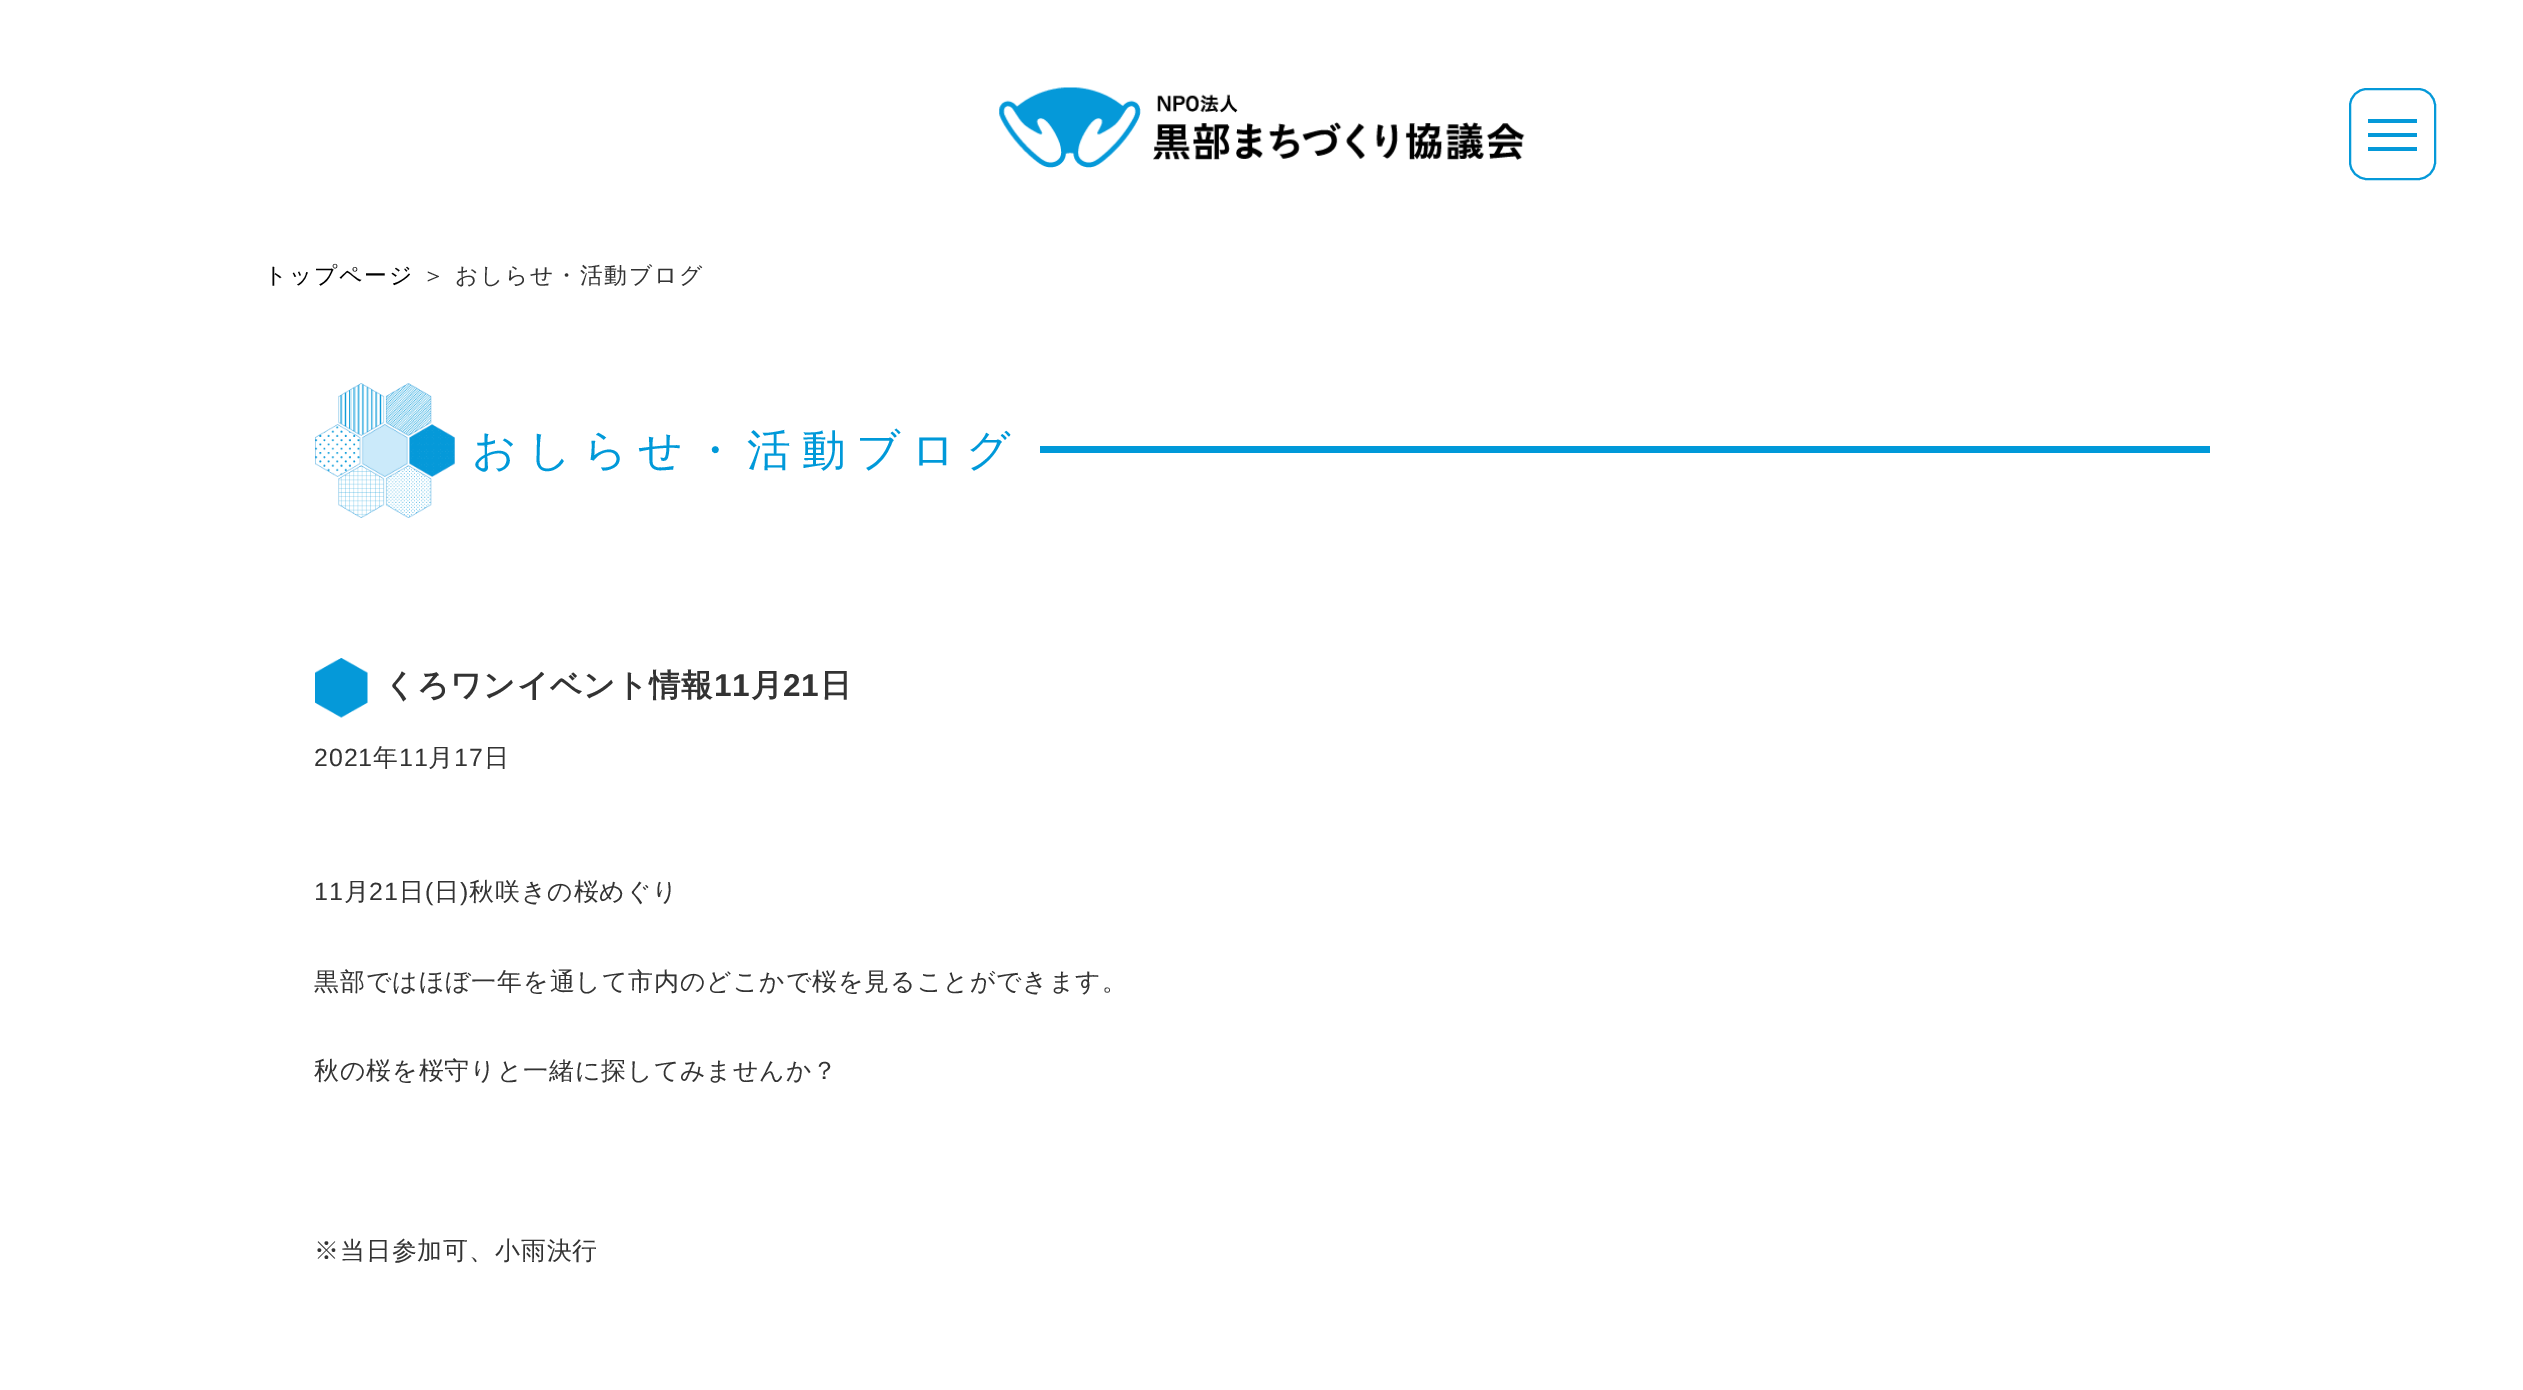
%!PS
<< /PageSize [2523 1390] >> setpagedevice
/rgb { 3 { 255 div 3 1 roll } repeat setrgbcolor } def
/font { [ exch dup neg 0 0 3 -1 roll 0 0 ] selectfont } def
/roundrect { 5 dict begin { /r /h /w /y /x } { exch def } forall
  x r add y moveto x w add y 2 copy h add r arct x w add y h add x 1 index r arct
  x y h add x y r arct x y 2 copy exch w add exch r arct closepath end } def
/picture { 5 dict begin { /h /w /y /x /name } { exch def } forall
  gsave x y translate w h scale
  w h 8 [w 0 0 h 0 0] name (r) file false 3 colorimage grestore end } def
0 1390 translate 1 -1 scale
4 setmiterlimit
255 255 255 rgb
0 0 2523 1390 rectfill
(img_01.rgb) 999 87 526 81 picture
5 153 217 rgb
2 setlinewidth
2350 89 85 90 17 roundrect stroke
2368 119 49 4 rectfill
2368 133 49 4 rectfill
2368 147 49 4 rectfill
(img_02.rgb) 315 383 140 135 picture
0 153 217 rgb
1040 446 1170 7 rectfill
(img_03.rgb) 315 658 53 60 picture
/WenQuanYiZenHei-Medium 22.75 font
0 0 0 rgb
264 283 moveto 1.75 0 (トップページ) ashow
51 51 51 rgb
422 283 moveto 1.75 0 (＞ おしらせ・活動ブログ) ashow
/WenQuanYiZenHei-Medium 43.75 font
0 153 217 rgb
472 465 moveto 10.5 0 (おしらせ・活動ブログ) ashow
/WenQuanYiZenHei-Bold 31.5 font
51 51 51 rgb
384 696 moveto 0.9 0 (くろワンイベント情報) ashow
/LiberationSans-Bold 31.5 font
714 696 moveto 0.9 0 (11) ashow
/WenQuanYiZenHei-Bold 31.5 font
751 696 moveto 0.9 0 (月) ashow
/LiberationSans-Bold 31.5 font
783 696 moveto 0.9 0 (21) ashow
/WenQuanYiZenHei-Bold 31.5 font
820 696 moveto 0.9 0 (日) ashow
/LiberationSans-Regular 24.95 font
314 766 moveto 0.9 0 (2021) ashow
/WenQuanYiZenHei-Medium 24.95 font
373 766 moveto 0.9 0 (年) ashow
/LiberationSans-Regular 24.95 font
399 766 moveto 0.9 0 (11) ashow
/WenQuanYiZenHei-Medium 24.95 font
428 766 moveto 0.9 0 (月) ashow
/LiberationSans-Regular 24.95 font
454 766 moveto 0.9 0 (17) ashow
/WenQuanYiZenHei-Medium 24.95 font
484 766 moveto 0.9 0 (日) ashow
/LiberationSans-Regular 24.95 font
314 900 moveto 0.9 0 (11) ashow
/WenQuanYiZenHei-Medium 24.95 font
344 900 moveto 0.9 0 (月) ashow
/LiberationSans-Regular 24.95 font
369 900 moveto 0.9 0 (21) ashow
/WenQuanYiZenHei-Medium 24.95 font
399 900 moveto 0.9 0 (日) ashow
/LiberationSans-Regular 24.95 font
425 900 moveto 0.9 0 (\() ashow
/WenQuanYiZenHei-Medium 24.95 font
434 900 moveto 0.9 0 (日) ashow
/LiberationSans-Regular 24.95 font
460 900 moveto 0.9 0 (\)) ashow
/WenQuanYiZenHei-Medium 24.95 font
469 900 moveto 0.9 0 (秋咲きの桜めぐり) ashow
314 990 moveto 0.9 0 (黒部ではほぼ一年を通して市内のどこかで桜を見ることができます。) ashow
314 1079 moveto 0.9 0 (秋の桜を桜守りと一緒に探してみませんか？) ashow
314 1259 moveto 0.9 0 (※当日参加可、小雨決行) ashow
showpage
